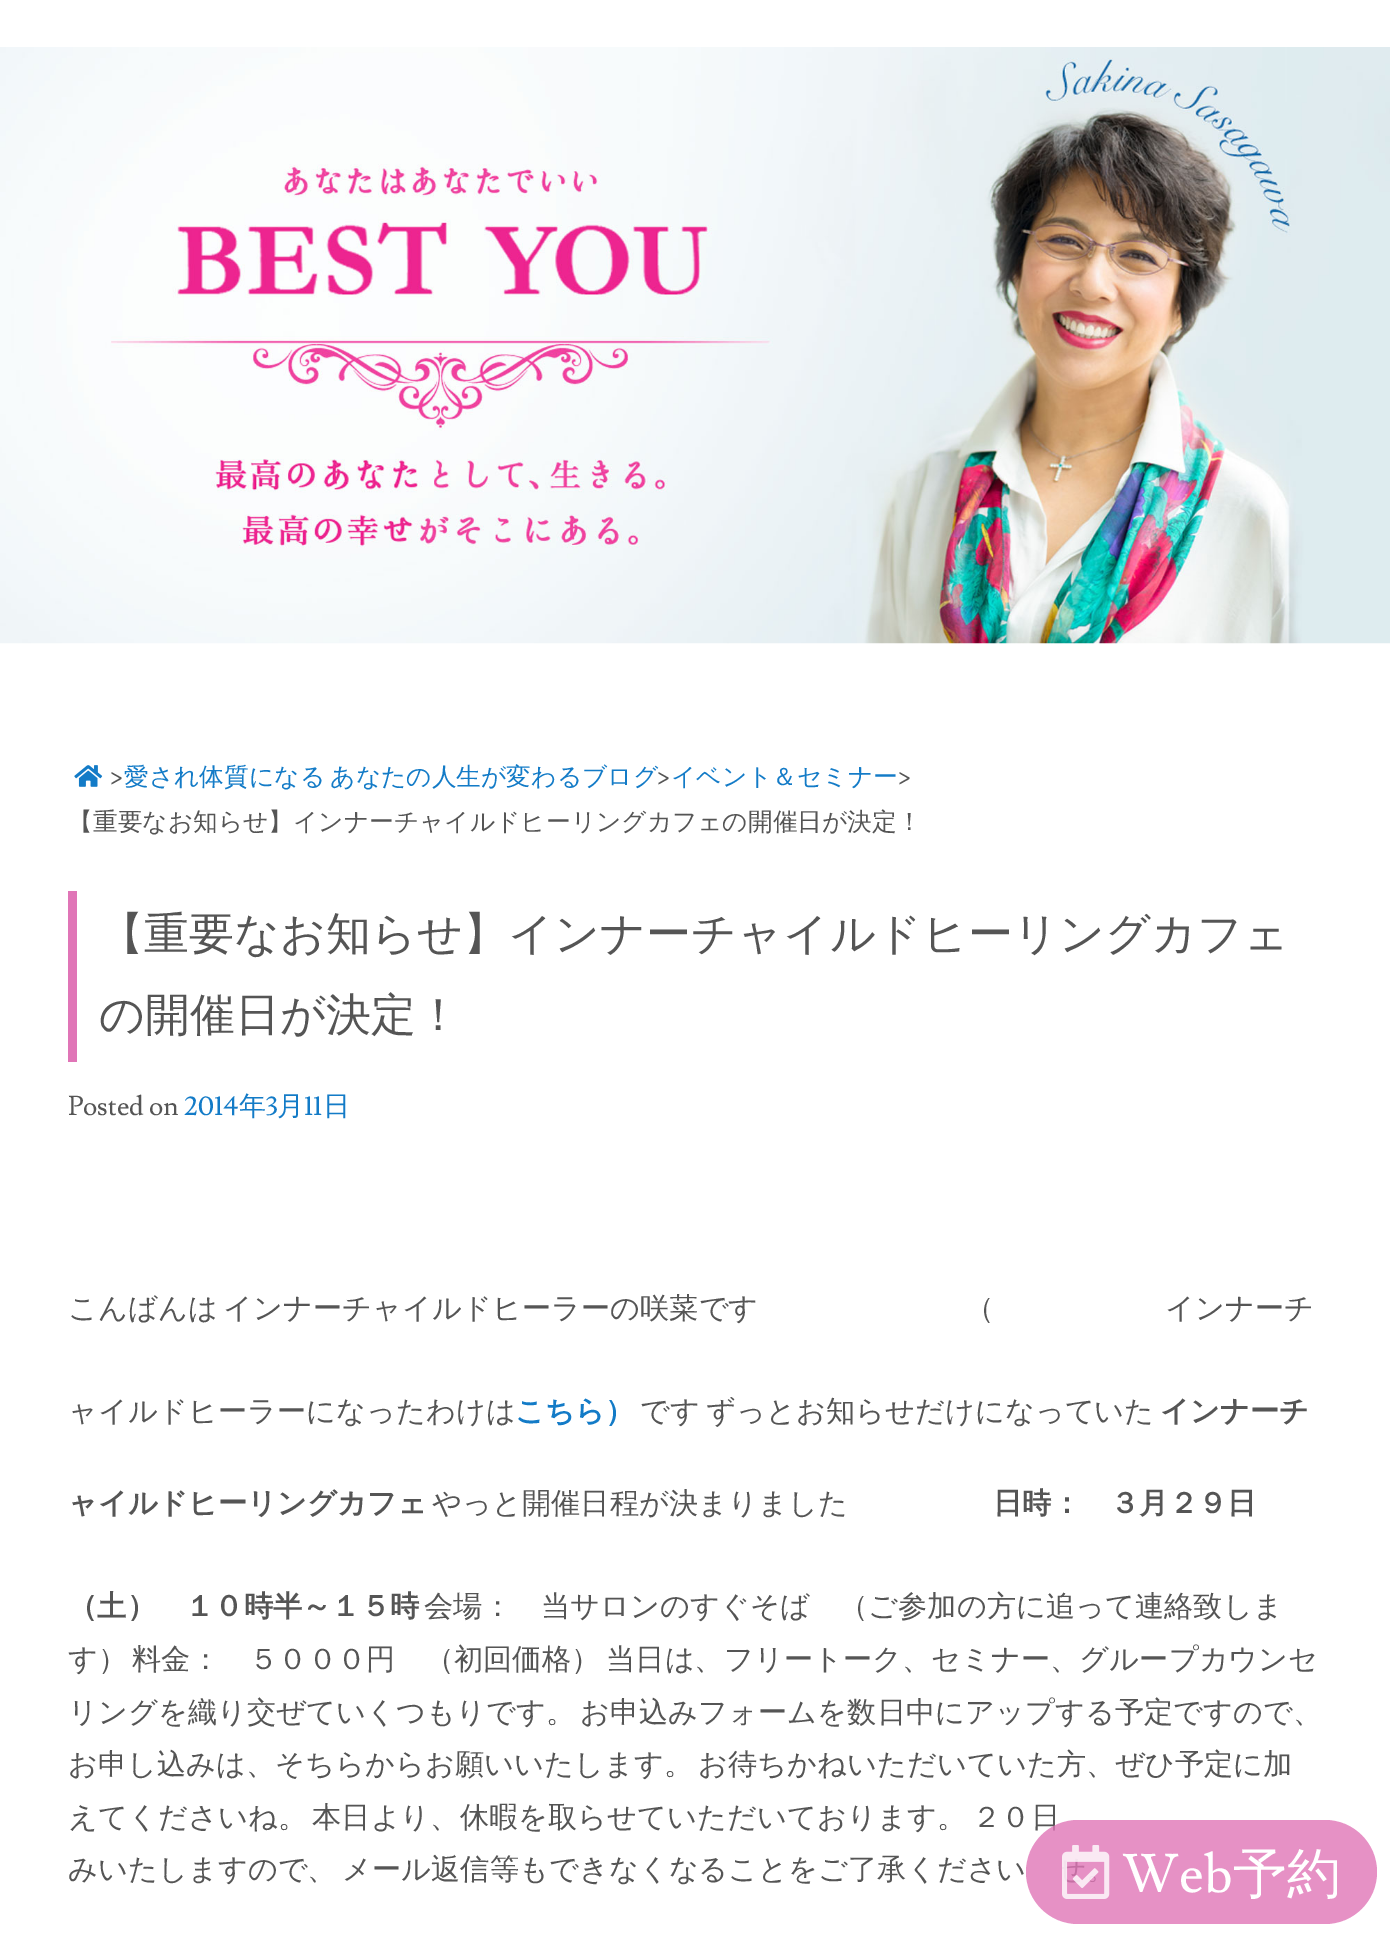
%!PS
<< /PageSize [1390 1936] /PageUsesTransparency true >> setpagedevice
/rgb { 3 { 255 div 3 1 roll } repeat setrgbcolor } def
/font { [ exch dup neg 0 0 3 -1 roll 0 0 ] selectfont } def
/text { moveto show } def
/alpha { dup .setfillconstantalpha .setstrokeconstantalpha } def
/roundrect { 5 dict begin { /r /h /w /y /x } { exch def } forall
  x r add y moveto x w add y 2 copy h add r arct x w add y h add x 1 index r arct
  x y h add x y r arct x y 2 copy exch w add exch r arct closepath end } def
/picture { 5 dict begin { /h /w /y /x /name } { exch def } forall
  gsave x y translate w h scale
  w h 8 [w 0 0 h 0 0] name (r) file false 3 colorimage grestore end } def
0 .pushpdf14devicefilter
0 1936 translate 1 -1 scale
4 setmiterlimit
255 255 255 rgb
0 0 1390 1936 rectfill
(img_01.rgb) 0 47 1390 597 picture
(img_02.rgb) 74 765 29 22 picture
224 117 183 rgb
68 891 9 171 rectfill
/Lusitana-Regular 24.75 font
85 85 85 rgb
(>) 110 785 text
/WenQuanYiZenHei-Medium 24.75 font
19 123 199 rgb
124 785 moveto -2 0 32 (愛され体質になる あなたの人生が変わるブログ) widthshow
/Lusitana-Regular 24.75 font
85 85 85 rgb
(>) 657 785 text
/WenQuanYiZenHei-Medium 24.75 font
19 123 199 rgb
(イベント＆セミナー) 671 785 text
/Lusitana-Regular 24.75 font
85 85 85 rgb
(>) 898 785 text
/WenQuanYiZenHei-Medium 24.75 font
(【重要なお知らせ】インナーチャイルドヒーリングカフェの開催日が決定！) 68 830 text
/WenQuanYiZenHei-Medium 45 font
(【重要なお知らせ】インナーチャイルドヒーリングカフェ) 99 949 text
(の開催日が決定！) 99 1030 text
/Lusitana-Regular 27 font
(Posted on) 68 1115 text
19 123 199 rgb
(2014) 184 1115 text
/WenQuanYiZenHei-Medium 27 font
(年) 239 1115 text
/Lusitana-Regular 27 font
(3) 266 1115 text
/WenQuanYiZenHei-Medium 27 font
(月) 277 1115 text
/Lusitana-Regular 27 font
(11) 304 1115 text
/WenQuanYiZenHei-Medium 27 font
(日) 323 1115 text
/WenQuanYiZenHei-Medium 29.25 font
85 85 85 rgb
(こんばんは) 68 1318 text
(インナーチャイルドヒーラーの咲菜です) 223 1318 text
(（) 965 1318 text
(インナーチ) 1165 1318 text
(ャイルドヒーラーになったわけは) 68 1421 text
/WenQuanYiZenHei-Bold 29.25 font
19 123 199 rgb
(こちら）) 515 1421 text
/WenQuanYiZenHei-Medium 29.25 font
85 85 85 rgb
(です) 640 1421 text
(ずっとお知らせだけになっていた) 706 1421 text
/WenQuanYiZenHei-Bold 29.25 font
(インナーチ) 1160 1421 text
(ャイルドヒーリングカフェ) 68 1513 text
/WenQuanYiZenHei-Medium 29.25 font
(やっと開催日程が決まりました) 432 1513 text
/WenQuanYiZenHei-Bold 29.25 font
(日時：　３月２９日) 993 1513 text
(（土）　１０時半～１５時) 68 1616 text
/WenQuanYiZenHei-Medium 29.25 font
(会場：　当サロンのすぐそば　（ご参加の方に追って連絡致しま) 424 1616 text
(す）) 68 1669 text
(料金：　５０００円　（初回価格）) 132 1669 text
(当日は、フリートーク、セミナー、グループカウンセ) 606 1669 text
(リングを織り交ぜていくつもりです。) 68 1722 text
(お申込みフォームを数日中にアップする予定ですので、) 580 1722 text
(お申し込みは、そちらからお願いいたします。) 68 1774 text
(お待ちかねいただいていた方、ぜひ予定に加) 698 1774 text
(えてくださいね。) 68 1827 text
(本日より、休暇を取らせていただいております。) 312 1827 text
(２０日) 972 1827 text
(みいたしますので、) 68 1879 text
(メール返信等もできなくなることをご了承ください) 342 1879 text
0.8 alpha
224 117 183 rgb
1026 1820 351 104 52 roundrect fill
1 alpha
(img_03.rgb) 1062 1845 48 54 picture
/Lusitana-Regular 54 font
255 255 255 rgb
(Web) 1122 1892 text
/WenQuanYiZenHei-Medium 54 font
(予約) 1233 1892 text
.poppdf14devicefilter showpage
